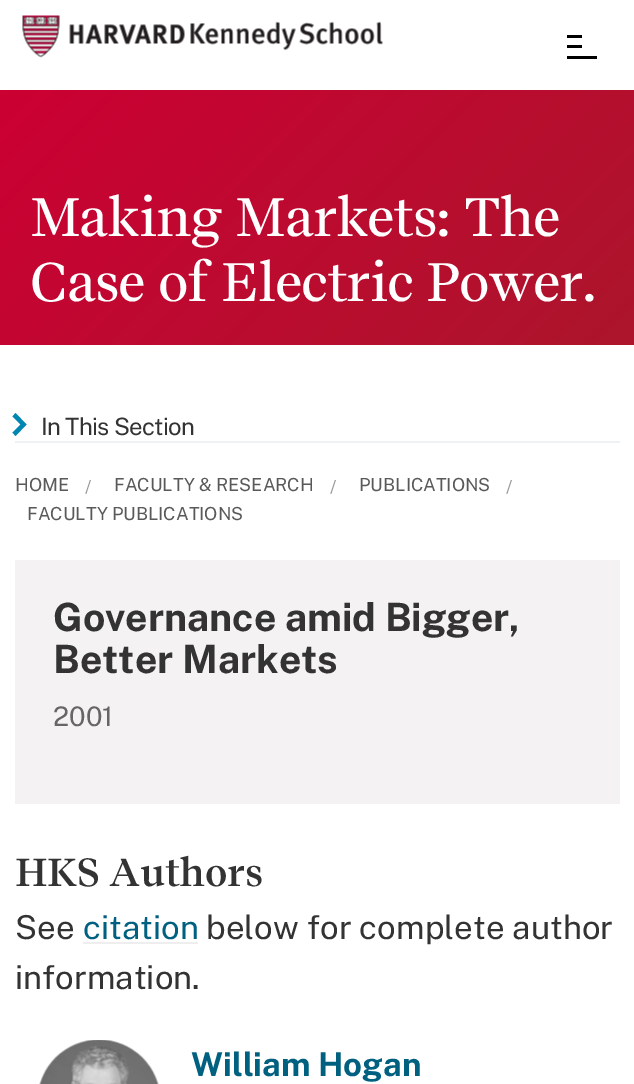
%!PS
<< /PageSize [634 1084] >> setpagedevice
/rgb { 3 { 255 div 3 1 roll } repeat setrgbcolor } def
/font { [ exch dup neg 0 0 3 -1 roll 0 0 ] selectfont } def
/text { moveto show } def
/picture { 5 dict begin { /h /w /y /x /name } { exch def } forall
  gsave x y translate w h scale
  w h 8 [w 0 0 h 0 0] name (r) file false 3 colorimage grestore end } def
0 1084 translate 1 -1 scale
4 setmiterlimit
255 255 255 rgb
0 0 634 1084 rectfill
(img_01.rgb) 22 15 361 43 picture
0 0 0 rgb
567 35 15 3 rectfill
567 45 15 3 rectfill
567 56 30 3 rectfill
gsave 0 90 moveto 634 0 rlineto 0 255 rlineto -634 0 rlineto closepath clip newpath
<< /ShadingType 2 /ColorSpace /DeviceRGB /Coords [95 -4.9 540 440] /Extend [true true] /Function << /FunctionType 2 /Domain [0 1] /C0 [0.8 0 0.2] /C1 [0.675 0.086 0.173] /N 1 >> >> shfill grestore
238 242 244 rgb
15 441 605 2 rectfill
0 134 179 rgb
26.5 424.5 moveto -11 -11.5 rlineto -3 3.5 rlineto 8 8 rlineto -8 8 rlineto 3 3.5 rlineto closepath fill
244 242 243 rgb
15 560 605 244 rectfill
238 238 238 rgb
83 942 115 2 rectfill
(img_02.rgb) 39 1040 120 44 picture
/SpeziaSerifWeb-Medium 54 font
255 255 255 rgb
30 236 moveto -1.5 0 (Making Markets: The) ashow
30 301 moveto -1.5 0 (Case of Electric Power.) ashow
/PublicSans-Thin 24 font
51 51 51 rgb
41 435 moveto -0.7 0 (In This Section) ashow
/PublicSans-Thin 18 font
89 89 89 rgb
(HOME) 15 491 text
153 153 153 rgb
(/) 85 493 text
89 89 89 rgb
(FACULTY & RESEARCH) 114 491 text
153 153 153 rgb
(/) 330 493 text
89 89 89 rgb
(PUBLICATIONS) 359 491 text
153 153 153 rgb
(/) 506 493 text
89 89 89 rgb
(FACULTY PUBLICATIONS) 27 520 text
/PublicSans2-Thin 39 font
51 51 51 rgb
(Governance amid Bigger,) 53 631 text
(Better Markets) 53 673 text
/PublicSans-Thin 27 font
102 102 102 rgb
(2001) 53 726 text
/SpeziaSerifWeb-SemiBold 39 font
51 51 51 rgb
15 886 moveto -0.5 0 (HKS Authors) ashow
/PublicSans-Thin 33 font
(See) 15 939 text
0 96 128 rgb
(citation) 83 939 text
51 51 51 rgb
(below for complete author) 206 939 text
(information.) 15 989 text
/PublicSans2-Thin 33 font
0 96 128 rgb
(William Hogan) 191 1076 text
showpage
